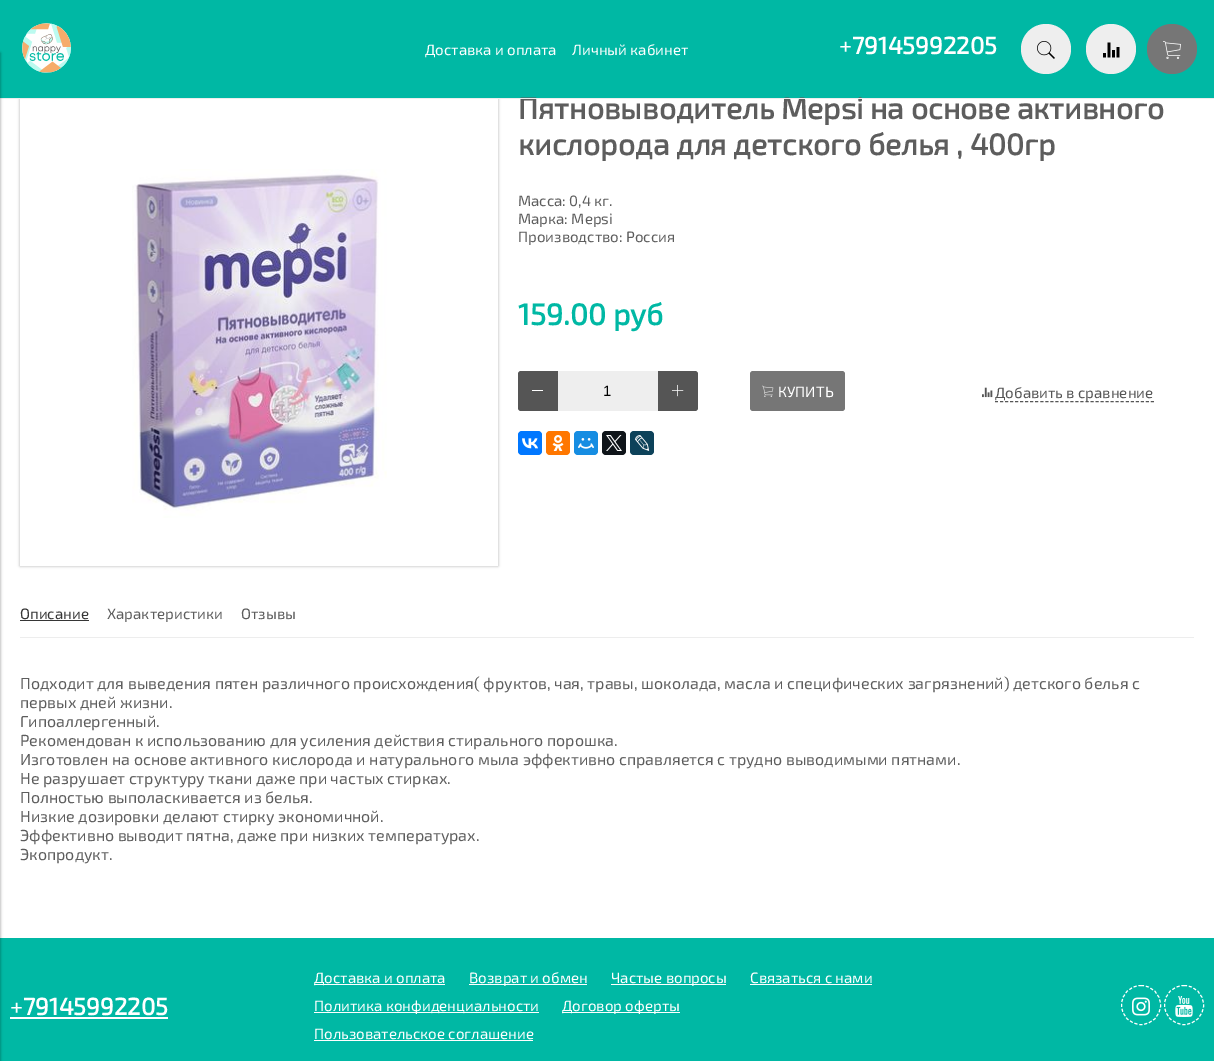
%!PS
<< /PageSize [1214 1061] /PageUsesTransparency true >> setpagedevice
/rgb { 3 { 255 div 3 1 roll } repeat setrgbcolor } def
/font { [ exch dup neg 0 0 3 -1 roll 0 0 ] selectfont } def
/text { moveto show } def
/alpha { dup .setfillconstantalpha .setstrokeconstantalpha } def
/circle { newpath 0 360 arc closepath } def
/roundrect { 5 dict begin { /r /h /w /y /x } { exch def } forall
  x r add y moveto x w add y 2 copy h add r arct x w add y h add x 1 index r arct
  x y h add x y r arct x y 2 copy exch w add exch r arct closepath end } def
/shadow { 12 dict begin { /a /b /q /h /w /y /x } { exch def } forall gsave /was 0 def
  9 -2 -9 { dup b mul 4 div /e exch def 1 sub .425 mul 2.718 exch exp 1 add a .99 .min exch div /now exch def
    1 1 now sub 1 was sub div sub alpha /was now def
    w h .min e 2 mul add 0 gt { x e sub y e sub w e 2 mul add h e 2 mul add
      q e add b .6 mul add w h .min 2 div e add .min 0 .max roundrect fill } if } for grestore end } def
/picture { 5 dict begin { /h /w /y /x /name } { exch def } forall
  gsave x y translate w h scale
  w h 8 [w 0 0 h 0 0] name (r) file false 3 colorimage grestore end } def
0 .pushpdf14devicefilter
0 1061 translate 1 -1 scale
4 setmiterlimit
255 255 255 rgb
0 0 1214 1061 rectfill
gsave
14 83 moveto 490 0 rlineto 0 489 rlineto -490 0 rlineto closepath 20 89 moveto 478 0 rlineto 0 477 rlineto -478 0 rlineto closepath eoclip newpath
0 0 0 rgb
20 89 478 477 0 1.5 0.3 shadow
grestore
0 184 164 rgb
0 0 1214 98 rectfill
(img_01.rgb) 22 23 49 50 picture
238 238 238 rgb
1046 49 25 circle fill
(img_02.rgb) 1037 41 18 18 picture
1111 49 25 circle fill
(img_03.rgb) 1103 42 17 16 picture
118 118 118 rgb
1172 49 25 circle fill
(img_04.rgb) 1163 41 18 18 picture
(img_05.rgb) 132 169 255 349 picture
85 85 85 rgb
521 371 moveto 37 0 rlineto 0 40 rlineto -37 0 rlineto -1.5 0 -3 -1.5 -3 -3 rcurveto 0 -34 rlineto 0 -1.5 1.5 -3 3 -3 rcurveto closepath fill
255 255 255 rgb
532 390 11 1 rectfill
238 238 238 rgb
558 371 100 40 rectfill
85 85 85 rgb
658 371 moveto 37 0 rlineto 1.5 0 3 1.5 3 3 rcurveto 0 34 rlineto 0 1.5 -1.5 3 -3 3 rcurveto -37 0 rlineto closepath fill
(img_06.rgb) 672 384 12 13 picture
118 118 118 rgb
750 371 95 40 3 roundrect fill
(img_07.rgb) 762 385 12 12 picture
(img_08.rgb) 982 387 11 11 picture
85 85 85 rgb
[3 2.03] 0 setdash
995 401.5 moveto 159 0 rlineto stroke
0 119 255 rgb
518 431 24 24 4 roundrect fill
(img_09.rgb) 522 438 16 11 picture
255 119 0 rgb
546 431 24 24 4 roundrect fill
(img_10.rgb) 552 435 12 16 picture
22 141 226 rgb
574 431 24 24 4 roundrect fill
(img_11.rgb) 578 438 16 11 picture
15 20 25 rgb
602 431 24 24 4 roundrect fill
(img_12.rgb) 606 435 16 16 picture
13 66 90 rgb
630 431 24 24 4 roundrect fill
(img_13.rgb) 635 435 15 16 picture
237 237 237 rgb
20 637 1174 1 rectfill
54 54 54 rgb
20 620 69 1 rectfill
0 184 164 rgb
0 938 1214 123 rectfill
255 255 255 rgb
10 1017 158 2 rectfill
314 984 131 1 rectfill
469 984 118 1 rectfill
611 984 115 1 rectfill
750 984 122 1 rectfill
314 1012 225 1 rectfill
562 1012 118 1 rectfill
314 1040 219 1 rectfill
[3 2] 0 setdash
1141 985.5 moveto 11 0 19.5 8.5 19.5 19.5 rcurveto 0 11 -8.5 19.5 -19.5 19.5 rcurveto -11 0 -19.5 -8.5 -19.5 -19.5 rcurveto 0 -11 8.5 -19.5 19.5 -19.5 rcurveto closepath stroke
(img_14.rgb) 1132 997 18 19 picture
1184 985.5 moveto 11 0 19.5 8.5 19.5 19.5 rcurveto 0 11 -8.5 19.5 -19.5 19.5 rcurveto -11 0 -19.5 -8.5 -19.5 -19.5 rcurveto 0 -11 8.5 -19.5 19.5 -19.5 rcurveto closepath stroke
(img_15.rgb) 1175 996 18 21 picture
/Exo2-Regular 15 font
(Доставка и оплата) 425 55 text
(Личный кабинет) 572 55 text
/Exo2-Regular 24 font
(+) 839 54 text
/Exo2-Bold 24 font
(79145992205) 852 54 text
/Exo2-Bold 30 font
93 93 93 rgb
(Пятновыводитель Mepsi на основе активного) 518 119 text
237 237 237 rgb
0 98 1214 1 rectfill
0 0 0 rgb
-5 53 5 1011 0 1.5 0.4 shadow
93 93 93 rgb
(кислорода для детского белья , 400гр) 518 155 text
/Exo2-Regular 15 font
(Масса: 0,4 кг.) 518 206 text
(Марка: Mepsi) 518 224 text
(Производство: Россия) 518 242 text
/Exo2-Bold 30 font
0 184 164 rgb
(159.00 руб) 518 325 text
/LiberationSans-Regular 15 font
0 0 0 rgb
(1) 603 396 text
/Exo2-Regular 15 font
255 255 255 rgb
(КУПИТЬ) 778 397 text
85 85 85 rgb
(Добавить в сравнение) 995 398 text
54 54 54 rgb
(Описание) 20 619 text
93 93 93 rgb
(Характеристики) 107 619 text
(Отзывы) 241 619 text
/Exo2-Regular 16 font
(Подходит для выведения пятен различного происхождения\( фруктов, чая, травы, шоколада, масла и специфических загрязнений\) детского белья с) 20 689 text
(первых дней жизни.) 20 708 text
(Гипоаллергенный.) 20 727 text
(Рекомендован к использованию для усиления действия стирального порошка.) 20 746 text
(Изготовлен на основе активного кислорода и натурального мыла эффективно справляется с трудно выводимыми пятнами.) 20 765 text
(Не разрушает структуру ткани даже при частых стирках.) 20 784 text
(Полностью выполаскивается из белья.) 20 803 text
(Низкие дозировки делают стирку экономичной.) 20 822 text
(Эффективно выводит пятна, даже при низких температурах.) 20 841 text
(Экопродукт.) 20 860 text
/Exo2-Regular 24 font
255 255 255 rgb
(+) 10 1015 text
/Exo2-Bold 24 font
(79145992205) 23 1015 text
/Exo2-Regular 15 font
(Доставка и оплата) 314 983 text
(Возврат и обмен) 469 983 text
(Частые вопросы) 611 983 text
(Связаться с нами) 750 983 text
(Политика конфиденциальности) 314 1011 text
(Договор оферты) 562 1011 text
(Пользовательское соглашение) 314 1039 text
.poppdf14devicefilter showpage
